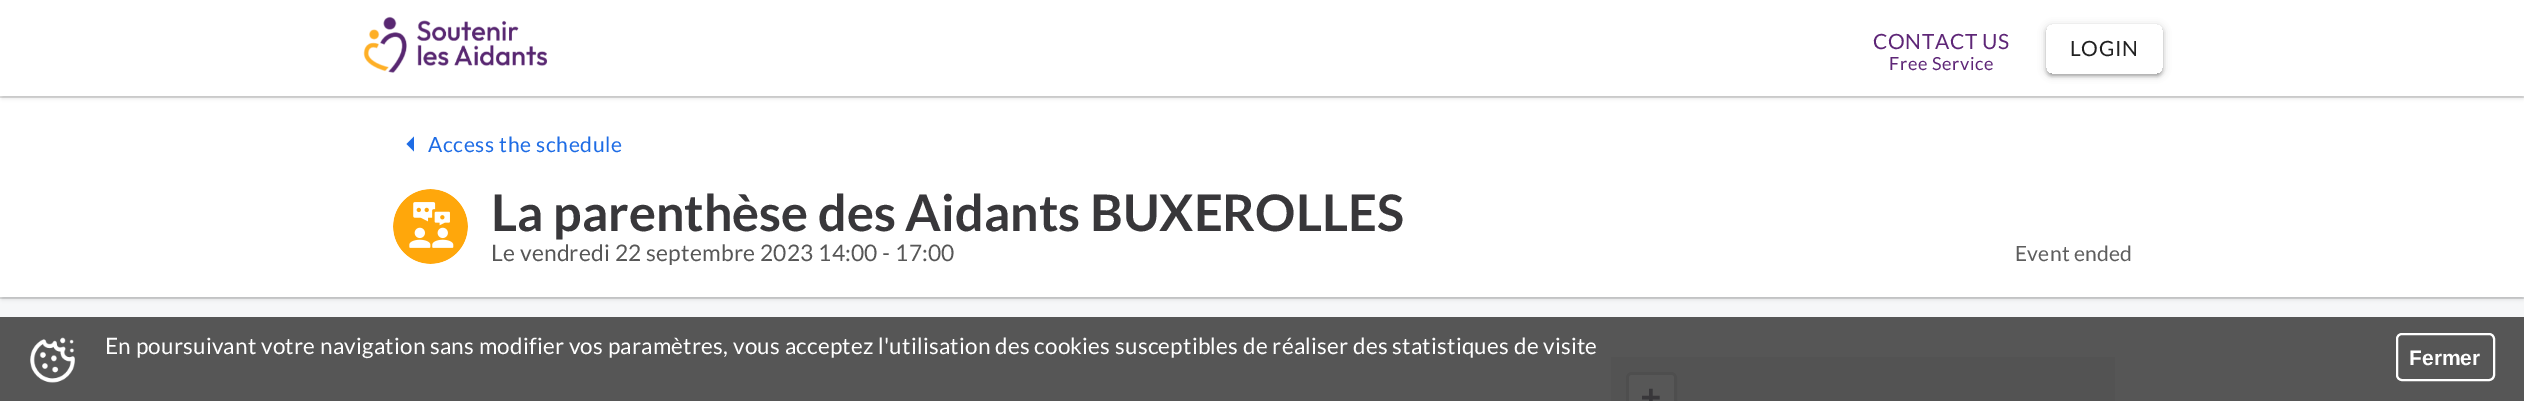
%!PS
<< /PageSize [2524 401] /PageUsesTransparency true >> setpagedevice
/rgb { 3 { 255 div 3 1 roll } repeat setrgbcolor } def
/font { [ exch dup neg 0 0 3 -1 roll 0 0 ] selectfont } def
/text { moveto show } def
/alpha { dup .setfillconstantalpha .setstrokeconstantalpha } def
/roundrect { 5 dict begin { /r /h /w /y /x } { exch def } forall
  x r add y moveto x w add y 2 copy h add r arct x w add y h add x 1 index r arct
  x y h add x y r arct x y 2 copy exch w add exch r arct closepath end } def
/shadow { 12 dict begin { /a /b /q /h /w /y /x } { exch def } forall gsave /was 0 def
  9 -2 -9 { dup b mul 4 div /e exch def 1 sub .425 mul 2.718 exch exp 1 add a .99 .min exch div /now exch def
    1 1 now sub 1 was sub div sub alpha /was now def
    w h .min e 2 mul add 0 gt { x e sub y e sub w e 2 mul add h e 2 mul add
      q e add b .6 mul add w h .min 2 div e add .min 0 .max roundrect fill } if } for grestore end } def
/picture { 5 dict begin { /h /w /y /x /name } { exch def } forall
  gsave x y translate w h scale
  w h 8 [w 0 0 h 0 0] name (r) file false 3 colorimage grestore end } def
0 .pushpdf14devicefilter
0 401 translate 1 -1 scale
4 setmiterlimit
246 247 248 rgb
0 0 2524 401 rectfill
86 86 86 rgb
0 317 2524 84 rectfill
216 217 218 rgb
0 297 moveto 0 2 rlineto 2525 0 rlineto 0 -201 rlineto -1 0 rlineto 0 199 rlineto closepath fill
0 0 0 rgb
2 101 2521 198 0 2 0.12 shadow
224 224 224 rgb
0 96 moveto 0 2 rlineto 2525 0 rlineto 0 -96 rlineto -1 0 rlineto 0 94 rlineto closepath fill
255 255 255 rgb
0 98 2524 199 rectfill
0 0 0 rgb
2 5 2521 93 0 2 0.12 shadow
255 255 255 rgb
0 0 2524 96 rectfill
(img_01.rgb) 363 16 185 57 picture
gsave
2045 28 moveto 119 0 rlineto 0 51 rlineto -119 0 rlineto closepath 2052 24 moveto 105 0 rlineto 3.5 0 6 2.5 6 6 rcurveto 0 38 rlineto 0 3.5 -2.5 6 -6 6 rcurveto -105 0 rlineto -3.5 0 -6 -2.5 -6 -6 rcurveto 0 -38 rlineto 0 -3.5 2.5 -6 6 -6 rcurveto closepath eoclip newpath
0 0 0 rgb
2049 32 111 43 3 1 0.12 shadow
grestore
gsave
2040 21 moveto 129 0 rlineto 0 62 rlineto -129 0 rlineto closepath 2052 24 moveto 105 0 rlineto 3.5 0 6 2.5 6 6 rcurveto 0 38 rlineto 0 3.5 -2.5 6 -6 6 rcurveto -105 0 rlineto -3.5 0 -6 -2.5 -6 -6 rcurveto 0 -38 rlineto 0 -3.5 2.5 -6 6 -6 rcurveto closepath eoclip newpath
0 0 0 rgb
2046 27 117 50 6 1.5 0.14 shadow
grestore
gsave
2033 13 moveto 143 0 rlineto 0 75 rlineto -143 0 rlineto closepath 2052 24 moveto 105 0 rlineto 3.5 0 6 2.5 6 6 rcurveto 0 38 rlineto 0 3.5 -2.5 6 -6 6 rcurveto -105 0 rlineto -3.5 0 -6 -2.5 -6 -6 rcurveto 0 -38 rlineto 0 -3.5 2.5 -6 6 -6 rcurveto closepath eoclip newpath
0 0 0 rgb
2046 26 117 49 6 4 0.2 shadow
grestore
30 108 229 rgb
414 136.5 moveto -7.5 7.5 rlineto 7.5 7.5 rlineto closepath fill
(img_02.rgb) 393 189 75 75 picture
83 83 83 rgb
1611 357 504 44 rectfill
78 78 78 rgb
3 setlinewidth
1627.5 373.5 48 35 4.5 roundrect stroke
87 87 87 rgb
1632 375 moveto 39 0 rlineto 1.5 0 3 1.5 3 3 rcurveto 0 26 rlineto -45 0 rlineto 0 -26 rlineto 0 -1.5 1.5 -3 3 -3 rcurveto closepath fill
(img_03.rgb) 30 337 45 46 picture
255 255 255 rgb
2 setlinewidth
2397 334 97 46 5 roundrect stroke
/Lato-Regular 21 font
94 38 119 rgb
1873 49 moveto 0.6 0 (CONTACT US) ashow
/Lato-Regular 18 font
1889 70 moveto 0.6 0 (Free Service) ashow
/Lato-Regular 21 font
33 33 33 rgb
2070 56 moveto 0.6 0 (LOGIN) ashow
30 108 229 rgb
428 152 moveto 0.6 0 (Access the schedule) ashow
/Lato-Bold 50.4 font
56 55 58 rgb
(La parenthèse des Aidants BUXEROLLES) 491 231 text
/Lato-Regular 22.8 font
87 87 87 rgb
491 261 moveto 0.2 0 (Le vendredi 22 septembre 2023 14:00 - 17:00) ashow
/Lato-Regular 21 font
94 94 94 rgb
2015 261 moveto 0.22 0 (Event ended) ashow
/DejaVuSansMono-Bold 33 font
56 55 58 rgb
1641 408 moveto 0.22 0 (+) ashow
/Lato-Regular 22.5 font
255 255 255 rgb
105 354 moveto 0.22 0 (En poursuivant votre navigation sans modifier vos paramètres, vous acceptez l'utilisation des cookies susceptibles de réaliser des statistiques de visite) ashow
/LiberationSans-Bold 21 font
(Fermer) 2409 365 text
.poppdf14devicefilter showpage
